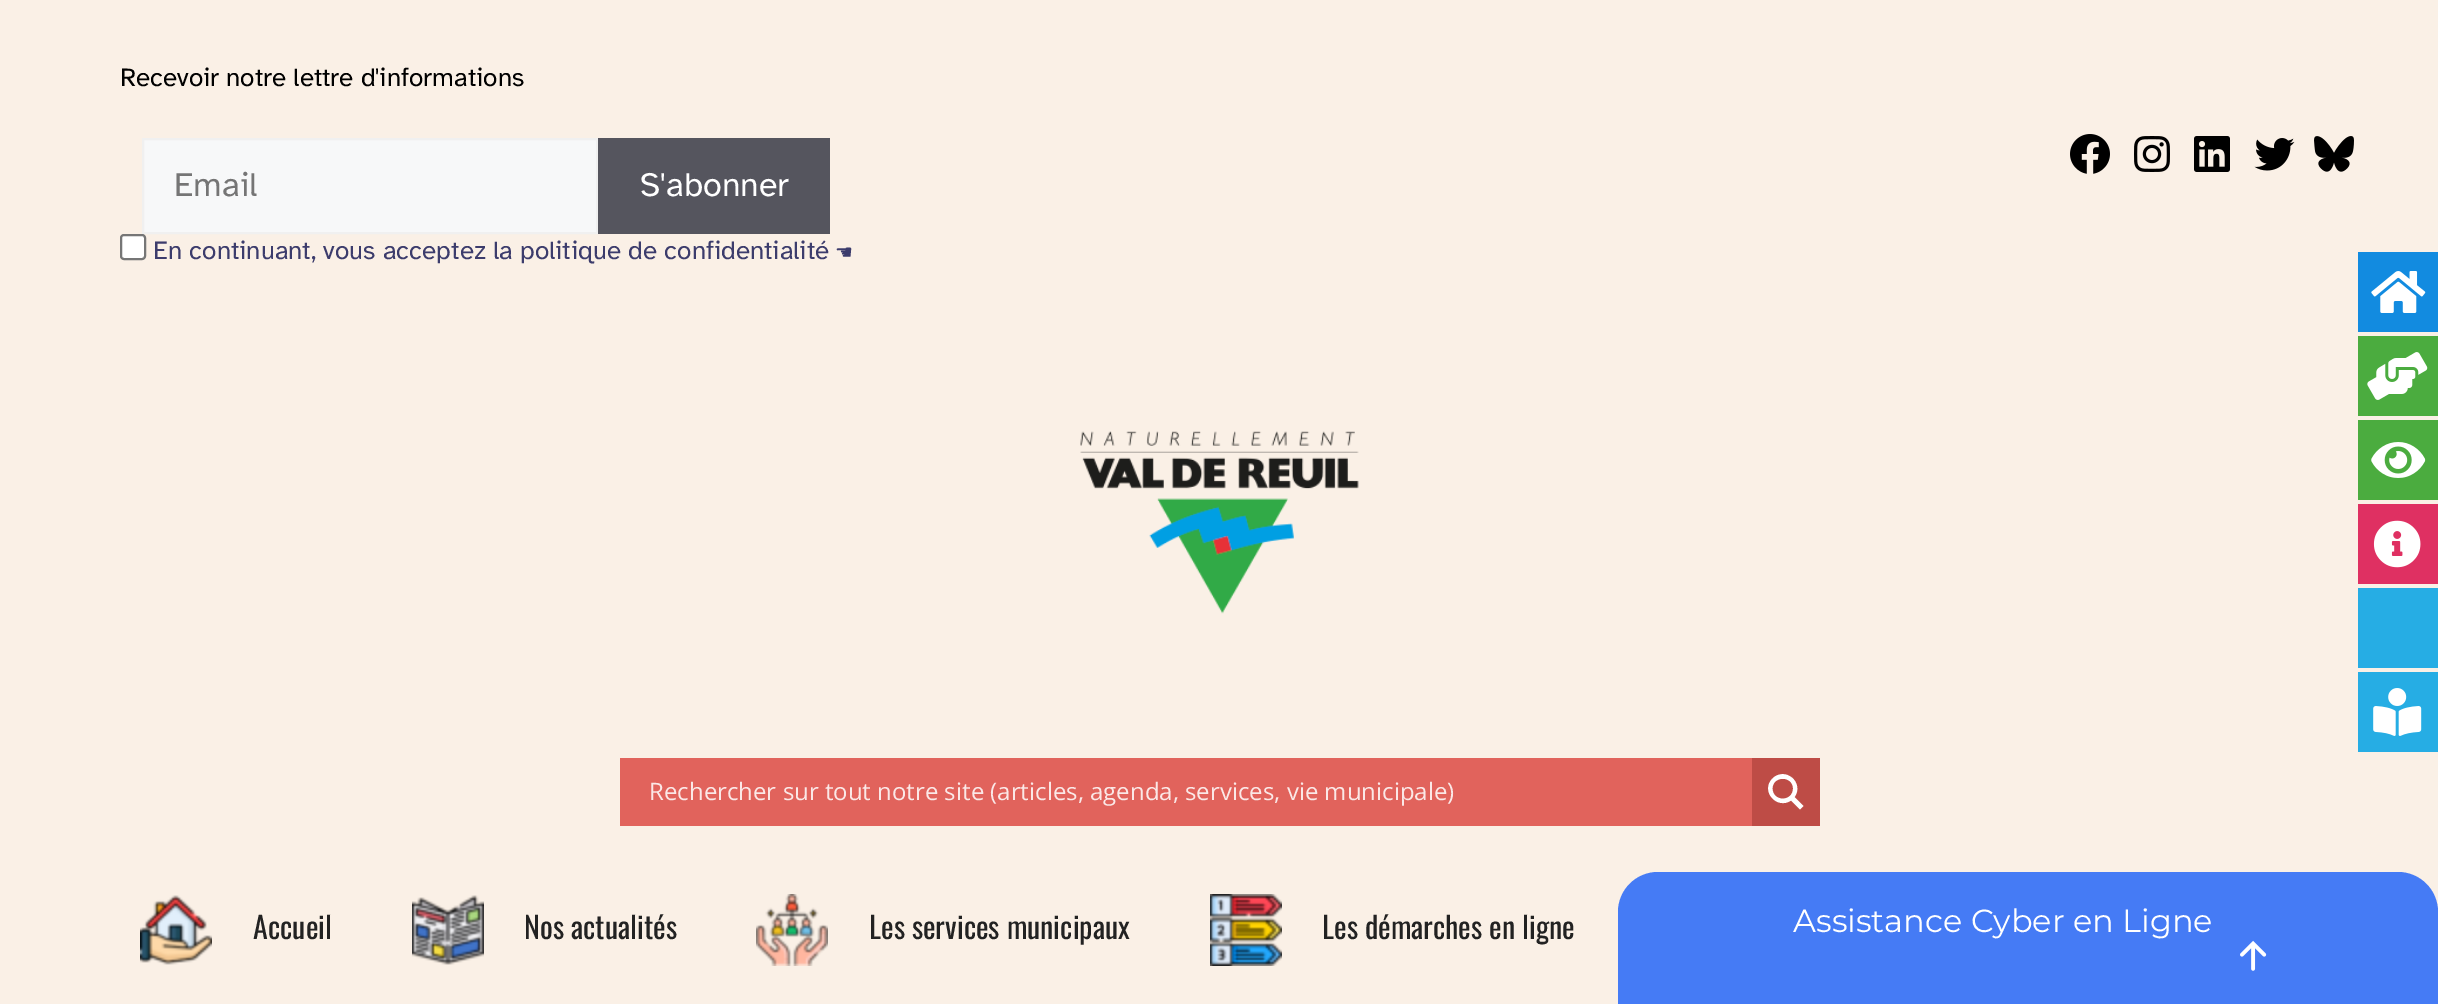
%!PS
<< /PageSize [2438 1004] >> setpagedevice
/rgb { 3 { 255 div 3 1 roll } repeat setrgbcolor } def
/font { [ exch dup neg 0 0 3 -1 roll 0 0 ] selectfont } def
/text { moveto show } def
/roundrect { 5 dict begin { /r /h /w /y /x } { exch def } forall
  x r add y moveto x w add y 2 copy h add r arct x w add y h add x 1 index r arct
  x y h add x y r arct x y 2 copy exch w add exch r arct closepath end } def
/picture { 5 dict begin { /h /w /y /x /name } { exch def } forall
  gsave x y translate w h scale
  w h 8 [w 0 0 h 0 0] name (r) file false 3 colorimage grestore end } def
0 1004 translate 1 -1 scale
4 setmiterlimit
250 240 230 rgb
0 0 2438 1004 rectfill
247 248 249 rgb
143 139 moveto 454 0 rlineto 0 94 rlineto -454 0 rlineto closepath gsave fill grestore
240 240 240 rgb
2 setlinewidth
stroke
85 85 94 rgb
598 138 232 96 rectfill
255 255 255 rgb
121 235 24 24 3 roundrect gsave fill grestore
118 118 118 rgb
stroke
(img_01.rgb) 2070 134 40 40 picture
(img_02.rgb) 2134 136 36 36 picture
(img_03.rgb) 2194 136 36 36 picture
(img_04.rgb) 2254 138 41 33 picture
(img_05.rgb) 2314 136 40 36 picture
18 139 224 rgb
2358 252 80 80 rectfill
(img_06.rgb) 2371 271 55 42 picture
75 172 63 rgb
2358 336 80 80 rectfill
(img_07.rgb) 2367 352 61 48 picture
2358 420 80 80 rectfill
(img_08.rgb) 2371 442 55 36 picture
223 48 98 rgb
2358 504 80 80 rectfill
(img_09.rgb) 2373 520 48 48 picture
38 173 228 rgb
2358 588 80 80 rectfill
2358 672 80 80 rectfill
(img_10.rgb) 2373 688 49 48 picture
(img_11.rgb) 1080 431 279 183 picture
225 99 92 rgb
620 758 1132 68 rectfill
190 76 70 rgb
1752 758 68 68 rectfill
255 255 255 rgb
1803.5 806 moveto -9 -9 rlineto 10 -14 -9 -31 -22 -18.5 rcurveto -12.5 12.5 4.5 31.5 18.5 22 rcurveto 9 9 rlineto closepath 1772.5 788.5 moveto 0 -13 20.5 -13 20.5 0 rcurveto 0 13.5 -20.5 13.5 -20.5 0 rcurveto closepath fill
(img_12.rgb) 140 895 72 70 picture
(img_13.rgb) 412 895 72 70 picture
(img_14.rgb) 756 894 72 72 picture
(img_15.rgb) 1210 894 72 72 picture
69 123 245 rgb
1658 872 moveto 740 0 rlineto 22 0 40 18 40 40 rcurveto 0 92 rlineto -820 0 rlineto 0 -92 rlineto 0 -22 18 -40 40 -40 rcurveto closepath fill
(img_16.rgb) 2240 940 27 31 picture
/AtkinsonHyperlegible-Regular 26 font
0 0 0 rgb
(Recevoir notre lettre d'informations) 120 86 text
/AtkinsonHyperlegible-Regular 34 font
117 117 117 rgb
(Email) 174 196 text
255 255 255 rgb
(S'abonner) 640 196 text
/AtkinsonHyperlegible-Regular 26 font
60 60 108 rgb
(En continuant, vous acceptez la politique de confidentialité) 153 259 text
/DejaVuSans-Regular 20 font
(☚) 835 259 text
/OpenSans-Regular 24 font
251 232 231 rgb
(Rechercher sur tout notre site \(articles, agenda, services, vie municipale\)) 649 800 text
/Oswald-Regular 30 font
34 34 34 rgb
(Accueil) 253 939 text
(Nos actualités) 524 939 text
(Les services municipaux) 869 939 text
(Les démarches en ligne) 1322 939 text
/Montserrat-Regular 32 font
255 255 255 rgb
(Assistance Cyber en Ligne) 1793 932 text
showpage
